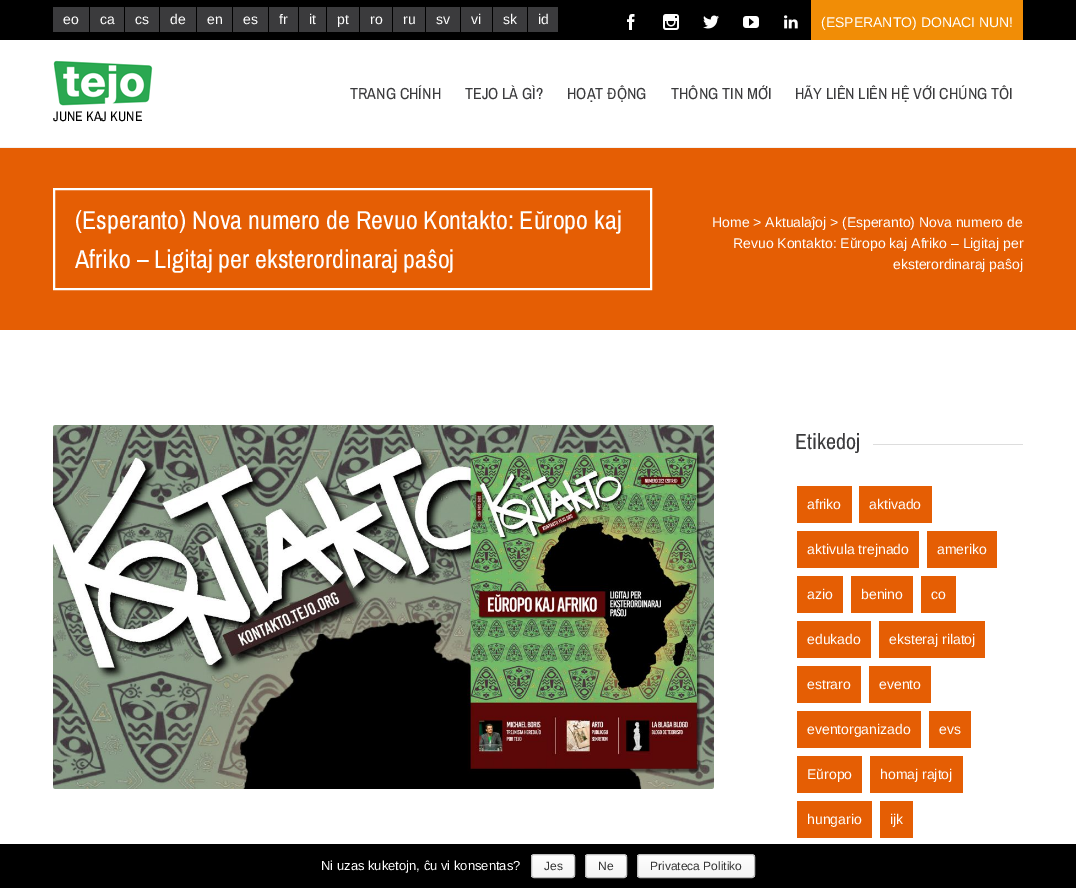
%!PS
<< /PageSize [1076 888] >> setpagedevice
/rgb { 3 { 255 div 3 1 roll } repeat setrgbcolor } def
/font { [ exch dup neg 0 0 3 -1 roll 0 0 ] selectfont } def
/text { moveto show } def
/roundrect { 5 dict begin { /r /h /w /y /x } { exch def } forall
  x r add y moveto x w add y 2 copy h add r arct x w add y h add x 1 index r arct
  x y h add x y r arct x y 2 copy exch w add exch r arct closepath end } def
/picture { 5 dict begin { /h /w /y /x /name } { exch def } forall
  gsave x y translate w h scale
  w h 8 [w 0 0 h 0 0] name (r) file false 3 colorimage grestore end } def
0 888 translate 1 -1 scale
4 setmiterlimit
255 255 255 rgb
0 0 1076 888 rectfill
0 0 0 rgb
0 0 1076 40 rectfill
59 59 61 rgb
53 7 36 25 rectfill
90 7 34 25 rectfill
125 7 34 25 rectfill
160 7 36 25 rectfill
197 7 35 25 rectfill
233 7 35 25 rectfill
269 7 29 25 rectfill
299 7 27 25 rectfill
327 7 32 25 rectfill
360 7 32 25 rectfill
393 7 32 25 rectfill
426 7 34 25 rectfill
461 7 31 25 rectfill
493 7 34 25 rectfill
528 7 30 25 rectfill
(img_01.rgb) 627 14 8 16 picture
(img_02.rgb) 663 14 16 16 picture
(img_03.rgb) 703 15 16 14 picture
(img_04.rgb) 743 16 16 12 picture
(img_05.rgb) 784 15 14 14 picture
241 141 6 rgb
811 0 212 40 rectfill
243 243 243 rgb
0 147 1076 1 rectfill
(img_06.rgb) 53 60 100 46 picture
229 94 4 rgb
0 148 1076 182 rectfill
255 255 255 rgb
2 setlinewidth
54 189 597 100 rectstroke
(img_07.rgb) 53 425 661 364 picture
221 221 221 rgb
873 444 150 1 rectfill
229 94 4 rgb
797 486 55 37 rectfill
859 486 73 37 rectfill
797 531 122 37 rectfill
927 531 70 37 rectfill
797 576 46 37 rectfill
851 576 62 37 rectfill
921 576 35 37 rectfill
797 621 74 37 rectfill
879 621 106 37 rectfill
797 666 64 37 rectfill
869 666 62 37 rectfill
797 711 124 37 rectfill
929 711 42 37 rectfill
797 756 65 37 rectfill
870 756 93 37 rectfill
797 801 75 37 rectfill
880 801 33 37 rectfill
0 0 0 rgb
0 844 1076 44 rectfill
gsave
531 854 44 24 3 roundrect clip newpath
gsave 531 855 moveto 44 0 rlineto 0 22 rlineto -44 0 rlineto closepath clip newpath
<< /ShadingType 2 /ColorSpace /DeviceRGB /Coords [553 855 553 877] /Extend [true true] /Function << /FunctionType 2 /Domain [0 1] /C0 [0.996 0.996 0.996] /C1 [0.957 0.957 0.957] /N 1 >> >> shfill grestore
grestore
187 187 187 rgb
1 setlinewidth
531.5 854.5 43 23 2.5 roundrect stroke
gsave
585 854 42 24 3 roundrect clip newpath
gsave 585 855 moveto 42 0 rlineto 0 22 rlineto -42 0 rlineto closepath clip newpath
<< /ShadingType 2 /ColorSpace /DeviceRGB /Coords [606 855 606 877] /Extend [true true] /Function << /FunctionType 2 /Domain [0 1] /C0 [0.996 0.996 0.996] /C1 [0.957 0.957 0.957] /N 1 >> >> shfill grestore
grestore
585.5 854.5 41 23 2.5 roundrect stroke
gsave
637 854 118 24 3 roundrect clip newpath
gsave 637 855 moveto 118 0 rlineto 0 22 rlineto -118 0 rlineto closepath clip newpath
<< /ShadingType 2 /ColorSpace /DeviceRGB /Coords [696 855 696 877] /Extend [true true] /Function << /FunctionType 2 /Domain [0 1] /C0 [0.996 0.996 0.996] /C1 [0.957 0.957 0.957] /N 1 >> >> shfill grestore
grestore
637.5 854.5 117 23 2.5 roundrect stroke
/LiberationSans-Regular 14 font
255 255 255 rgb
(eo) 63 24 text
(ca) 100 24 text
(cs) 135 24 text
(de) 170 24 text
(en) 207 24 text
(es) 243 24 text
(fr) 279 24 text
(it) 309 24 text
(pt) 337 24 text
(ro) 370 24 text
(ru) 403 24 text
(sv) 436 24 text
(vi) 471 24 text
(sk) 503 24 text
(id) 538 24 text
(\(ESPERANTO\) DONACI NUN!) 821 27 text
/ArchivoNarrow-Regular 16 font
59 59 61 rgb
(TRANG CHÍNH) 350 99 text
(TEJO LÀ GÌ?) 465 99 text
(HOẠT ĐỘNG) 567 99 text
(THÔNG TIN MỚI) 671 99 text
(HÃY LIÊN LIÊN HỆ VỚI CHÚNG TÔI) 795 99 text
/ArchivoNarrow-Regular 14 font
0 0 0 rgb
(JUNE KAJ KUNE) 53 121 text
/ArchivoNarrow-Regular 26 font
255 255 255 rgb
(\(Esperanto\) Nova numero de Revuo Kontakto: Eŭropo kaj) 75 229 text
(Afriko – Ligitaj per eksterordinaraj paŝoj) 75 268 text
/LiberationSans-Regular 14 font
(Home > Aktualaĵoj > \(Esperanto\) Nova numero de) 712 227 text
(Revuo Kontakto: Eŭropo kaj Afriko – Ligitaj per) 733 248 text
(eksterordinaraj paŝoj) 893 269 text
/ArchivoNarrow-Regular 22 font
59 59 61 rgb
(Etikedoj) 795 449 text
/LiberationSans-Regular 14 font
255 255 255 rgb
(afriko) 807 509 text
(aktivado) 869 509 text
(aktivula trejnado) 807 554 text
(ameriko) 937 554 text
(azio) 807 599 text
(benino) 861 599 text
(co) 931 599 text
(edukado) 807 644 text
(eksteraj rilatoj) 889 644 text
(estraro) 807 689 text
(evento) 879 689 text
(eventorganizado) 807 734 text
(evs) 939 734 text
(Eŭropo) 807 779 text
(homaj rajtoj) 880 779 text
(hungario) 807 824 text
(ijk) 890 824 text
/LiberationSans-Regular 13 font
(Ni uzas kuketojn, ĉu vi konsentas?) 321 870 text
/LiberationSans-Regular 12 font
51 51 51 rgb
(Jes) 544 870 text
(Ne) 598 870 text
(Privateca Politiko) 650 870 text
showpage
